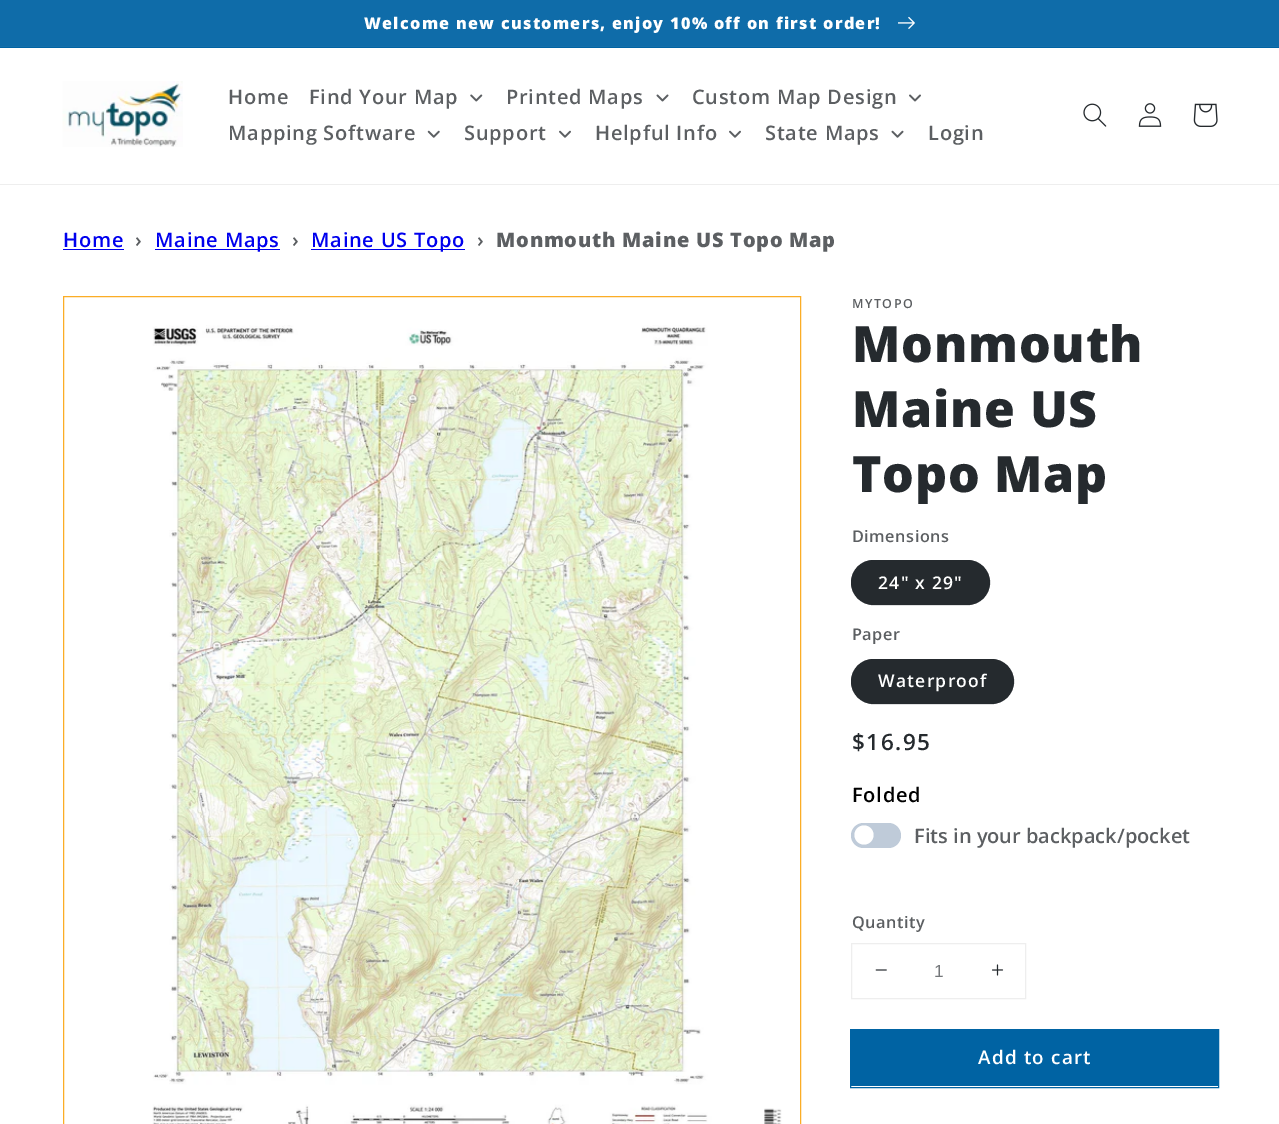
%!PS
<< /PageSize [1279 1124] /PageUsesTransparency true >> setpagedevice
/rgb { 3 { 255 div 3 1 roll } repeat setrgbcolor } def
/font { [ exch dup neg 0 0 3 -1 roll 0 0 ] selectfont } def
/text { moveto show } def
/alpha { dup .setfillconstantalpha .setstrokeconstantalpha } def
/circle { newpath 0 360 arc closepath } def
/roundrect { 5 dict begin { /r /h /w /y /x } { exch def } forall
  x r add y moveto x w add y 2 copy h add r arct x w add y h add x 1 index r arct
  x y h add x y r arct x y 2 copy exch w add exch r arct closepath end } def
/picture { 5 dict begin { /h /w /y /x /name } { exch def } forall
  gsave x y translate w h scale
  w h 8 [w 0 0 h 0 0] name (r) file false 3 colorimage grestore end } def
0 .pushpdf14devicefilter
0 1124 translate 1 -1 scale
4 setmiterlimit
255 255 255 rgb
0 0 1279 1124 rectfill
0 99 163 rgb
0 47 1279 1 rectfill
20 111 170 rgb
0 46 1279 1 rectfill
15 108 169 rgb
0 0 1279 46 rectfill
(img_01.rgb) 898 16 17 13 picture
238 238 238 rgb
0 184 1279 1 rectfill
(img_02.rgb) 62 81 121 66 picture
(img_03.rgb) 470 94 13 8 picture
(img_04.rgb) 656 94 13 8 picture
(img_05.rgb) 909 94 12 8 picture
(img_06.rgb) 427 130 13 8 picture
(img_07.rgb) 559 130 12 8 picture
(img_07.rgb) 729 130 12 8 picture
(img_08.rgb) 891 130 13 8 picture
(img_09.rgb) 1083 103 24 24 picture
(img_10.rgb) 1138 103 24 24 picture
(img_11.rgb) 1193 103 25 24 picture
0 0 238 rgb
63 249 61 1 rectfill
155 249 125 1 rectfill
311 249 154 1 rectfill
(img_12.rgb) 152 325 630 799 picture
251 173 38 rgb
63.5 296.5 737 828 rectstroke
37 42 46 rgb
851 560 139 45 22.5 roundrect fill
0.55 alpha
851.5 560.5 138 44 22 roundrect stroke
1 alpha
851 659 163 45 22.5 roundrect fill
0.55 alpha
851.5 659.5 162 44 22 roundrect stroke
1 alpha
191 203 217 rgb
851 823 50 25 12.5 roundrect fill
255 255 255 rgb
864 835 9.5 circle fill
238 238 238 rgb
851.5 943.5 174 55 rectstroke
(img_13.rgb) 875 969 12 2 picture
(img_14.rgb) 992 964 12 12 picture
0 99 163 rgb
850.5 1029.5 368 58 rectstroke
851 1030 367 56 rectfill
/OpenSans-ExtraBold 16.25 font
255 255 255 rgb
364 29 moveto 1.25 0 (Welcome new customers, enjoy 10% off on first order!) ashow
/OpenSans-SemiBold 20 font
92 95 98 rgb
228 104 moveto 0.75 0 (Home) ashow
309 104 moveto 0.75 0 (Find Your Map) ashow
506 104 moveto 0.75 0 (Printed Maps) ashow
692 104 moveto 0.75 0 (Custom Map Design) ashow
228 140 moveto 0.75 0 (Mapping Software) ashow
464 140 moveto 0.75 0 (Support) ashow
595 140 moveto 0.75 0 (Helpful Info) ashow
765 140 moveto 0.75 0 (State Maps) ashow
928 140 moveto 0.75 0 (Login) ashow
0 0 238 rgb
63 247 moveto 0.75 0 (Home) ashow
92 95 98 rgb
135 247 moveto 0.75 0 (›) ashow
0 0 238 rgb
155 247 moveto 0.75 0 (Maine Maps) ashow
92 95 98 rgb
292 247 moveto 0.75 0 (›) ashow
0 0 238 rgb
311 247 moveto 0.75 0 (Maine US Topo) ashow
92 95 98 rgb
477 247 moveto 0.75 0 (›) ashow
/OpenSans-ExtraBold 20 font
496 247 moveto 0.75 0 (Monmouth Maine US Topo Map) ashow
/OpenSans-SemiBold 12.5 font
852 308 moveto 1.5 0 (MYTOPO) ashow
/OpenSans-ExtraBold 50 font
37 42 46 rgb
852 362 moveto 0.75 0 (Monmouth) ashow
852 427 moveto 0.75 0 (Maine US) ashow
852 492 moveto 0.75 0 (Topo Map) ashow
/OpenSans-SemiBold 16.25 font
92 95 98 rgb
852 542 moveto 0.5 0 (Dimensions) ashow
/OpenSans-SemiBold 17.5 font
255 255 255 rgb
878 589 moveto 1.25 0 (24" x 29") ashow
/OpenSans-SemiBold 16.25 font
92 95 98 rgb
852 640 moveto 0.5 0 (Paper) ashow
/OpenSans-SemiBold 17.5 font
255 255 255 rgb
878 687 moveto 1.25 0 (Waterproof) ashow
/OpenSans-SemiBold 22.5 font
37 42 46 rgb
852 750 moveto 1.5 0 ($16.95) ashow
/OpenSans-SemiBold 20 font
0 0 0 rgb
852 802 moveto 0.75 0 (Folded) ashow
92 95 98 rgb
(Fits in your backpack/pocket) 914 843 text
/OpenSans-SemiBold 16.25 font
852 928 moveto 0.5 0 (Quantity) ashow
/LiberationSans-Regular 17.5 font
116 119 122 rgb
(1) 934 977 text
/OpenSans-SemiBold 18.75 font
255 255 255 rgb
978 1064 moveto 1.25 0 (Add to cart) ashow
.poppdf14devicefilter showpage
